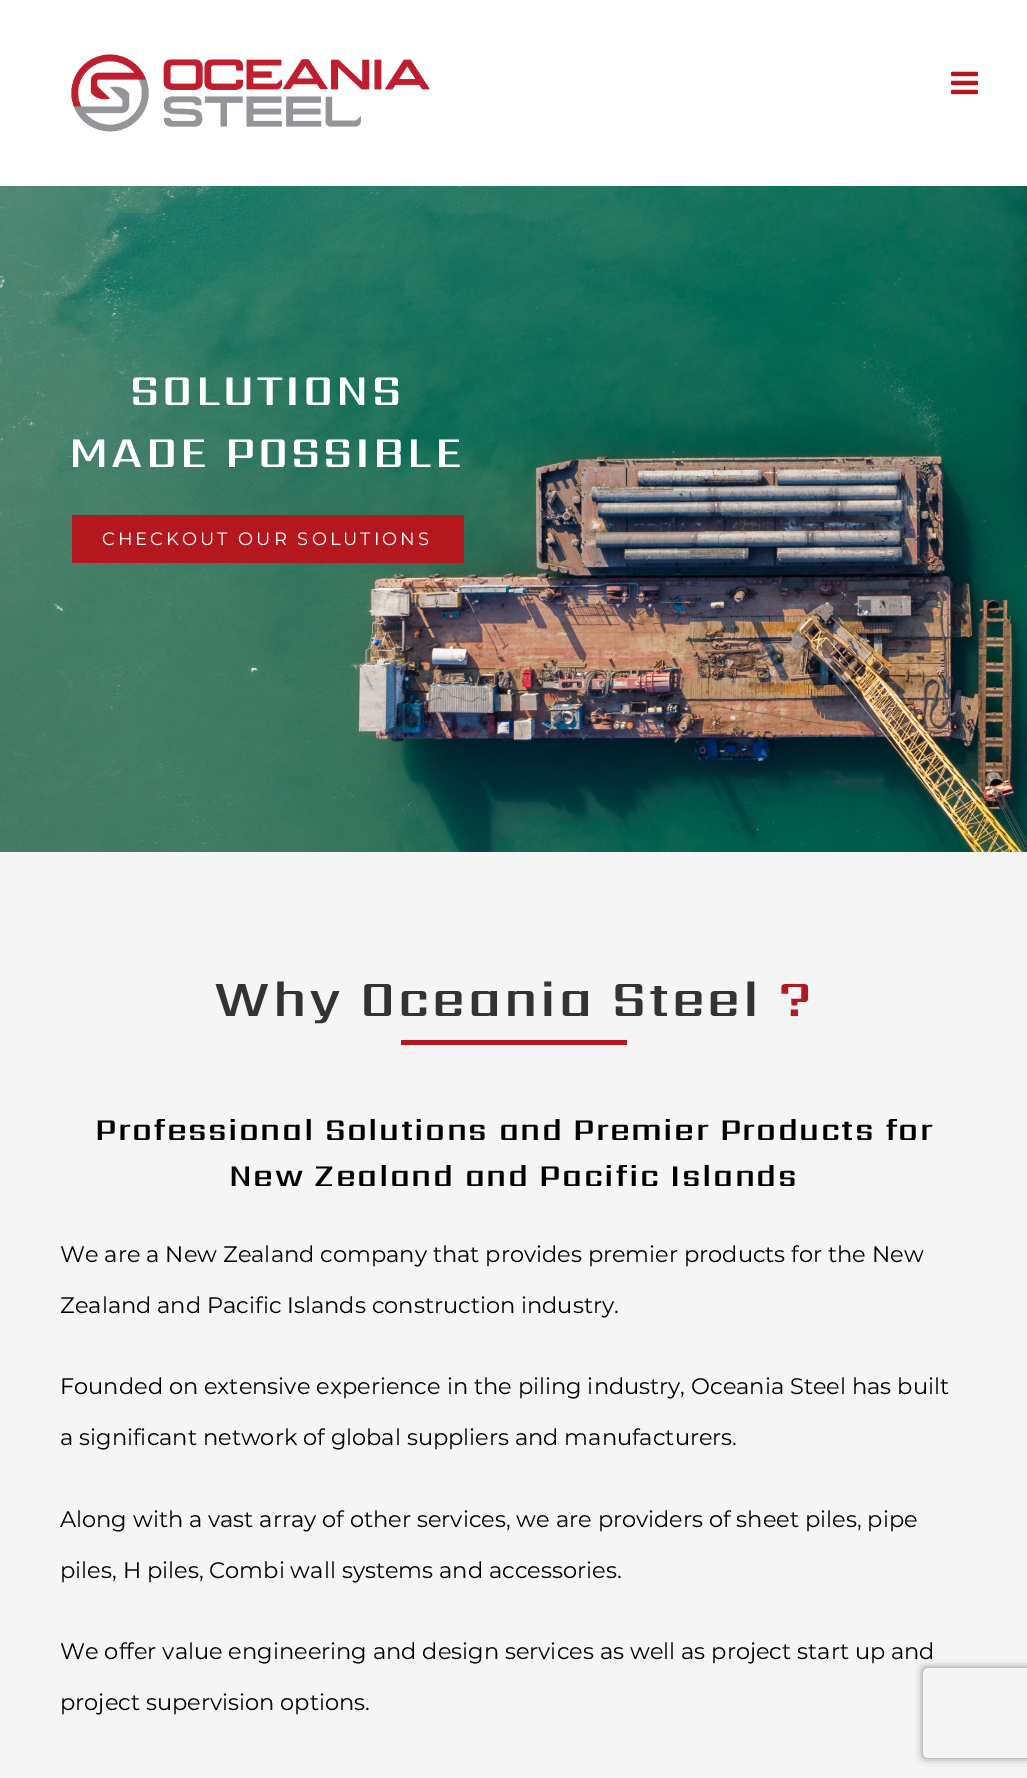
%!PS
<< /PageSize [1027 1778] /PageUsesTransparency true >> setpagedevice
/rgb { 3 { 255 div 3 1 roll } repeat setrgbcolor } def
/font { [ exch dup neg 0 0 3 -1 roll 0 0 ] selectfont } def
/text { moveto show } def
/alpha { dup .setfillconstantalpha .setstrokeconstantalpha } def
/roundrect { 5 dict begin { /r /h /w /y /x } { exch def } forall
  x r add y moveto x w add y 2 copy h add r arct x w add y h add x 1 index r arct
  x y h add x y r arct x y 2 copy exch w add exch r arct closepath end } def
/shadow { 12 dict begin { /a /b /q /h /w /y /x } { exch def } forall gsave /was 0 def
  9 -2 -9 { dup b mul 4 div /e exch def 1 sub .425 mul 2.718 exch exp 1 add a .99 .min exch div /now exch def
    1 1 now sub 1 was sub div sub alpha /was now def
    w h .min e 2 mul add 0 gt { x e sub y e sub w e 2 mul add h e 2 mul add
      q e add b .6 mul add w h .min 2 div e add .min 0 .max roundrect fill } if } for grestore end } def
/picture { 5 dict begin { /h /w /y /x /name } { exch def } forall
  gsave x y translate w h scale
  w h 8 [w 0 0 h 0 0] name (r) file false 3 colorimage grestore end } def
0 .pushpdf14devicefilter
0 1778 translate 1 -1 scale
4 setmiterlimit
255 255 255 rgb
0 0 1027 1778 rectfill
(img_01.rgb) 71 54 359 78 picture
(img_02.rgb) 951 71 27 24 picture
(img_03.rgb) 0 186 1027 666 picture
180 24 30 rgb
72 515 392 48 rectfill
245 245 245 rgb
0 852 1027 926 rectfill
180 24 30 rgb
401 1040 226 5 rectfill
gsave
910 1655 moveto 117 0 rlineto 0 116 rlineto -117 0 rlineto closepath 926 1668 moveto 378 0 rlineto 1.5 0 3 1.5 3 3 rcurveto 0 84 rlineto 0 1.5 -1.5 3 -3 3 rcurveto -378 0 rlineto -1.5 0 -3 -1.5 -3 -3 rcurveto 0 -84 rlineto 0 -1.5 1.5 -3 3 -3 rcurveto closepath eoclip newpath
128 128 128 rgb
923 1668 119 90 3 4 1 shadow
grestore
/Sarpanch-SemiBold 44.25 font
255 255 255 rgb
130 405 moveto 3 0 (SOLUTIONS) ashow
69 467 moveto 3 0 (MADE POSSIBLE) ashow
/Montserrat-Regular 18 font
102 545 moveto 3 0 (CHECKOUT OUR SOLUTIONS) ashow
/Sarpanch-SemiBold 51.5 font
51 51 51 rgb
214 1016 moveto 3 0 (Why Oceania Steel) ashow
180 24 30 rgb
780 1016 moveto 3 0 (?) ashow
/Sarpanch-SemiBold 31.25 font
0 0 0 rgb
95 1140 moveto 1.5 0 (Professional Solutions and Premier Products for) ashow
229 1186 moveto 1.5 0 (New Zealand and Pacific Islands) ashow
/Montserrat-Regular 22.5 font
(We are a New Zealand company that provides premier products for the New) 60 1262 text
(Zealand and Pacific Islands construction industry.) 60 1313 text
(Founded on extensive experience in the piling industry, Oceania Steel has built) 60 1394 text
(a significant network of global suppliers and manufacturers.) 60 1445 text
(Along with a vast array of other services, we are providers of sheet piles, pipe) 60 1527 text
(piles, H piles, Combi wall systems and accessories.) 60 1578 text
(We offer value engineering and design services as well as project start up and) 60 1659 text
(project supervision options.) 60 1710 text
.poppdf14devicefilter showpage
